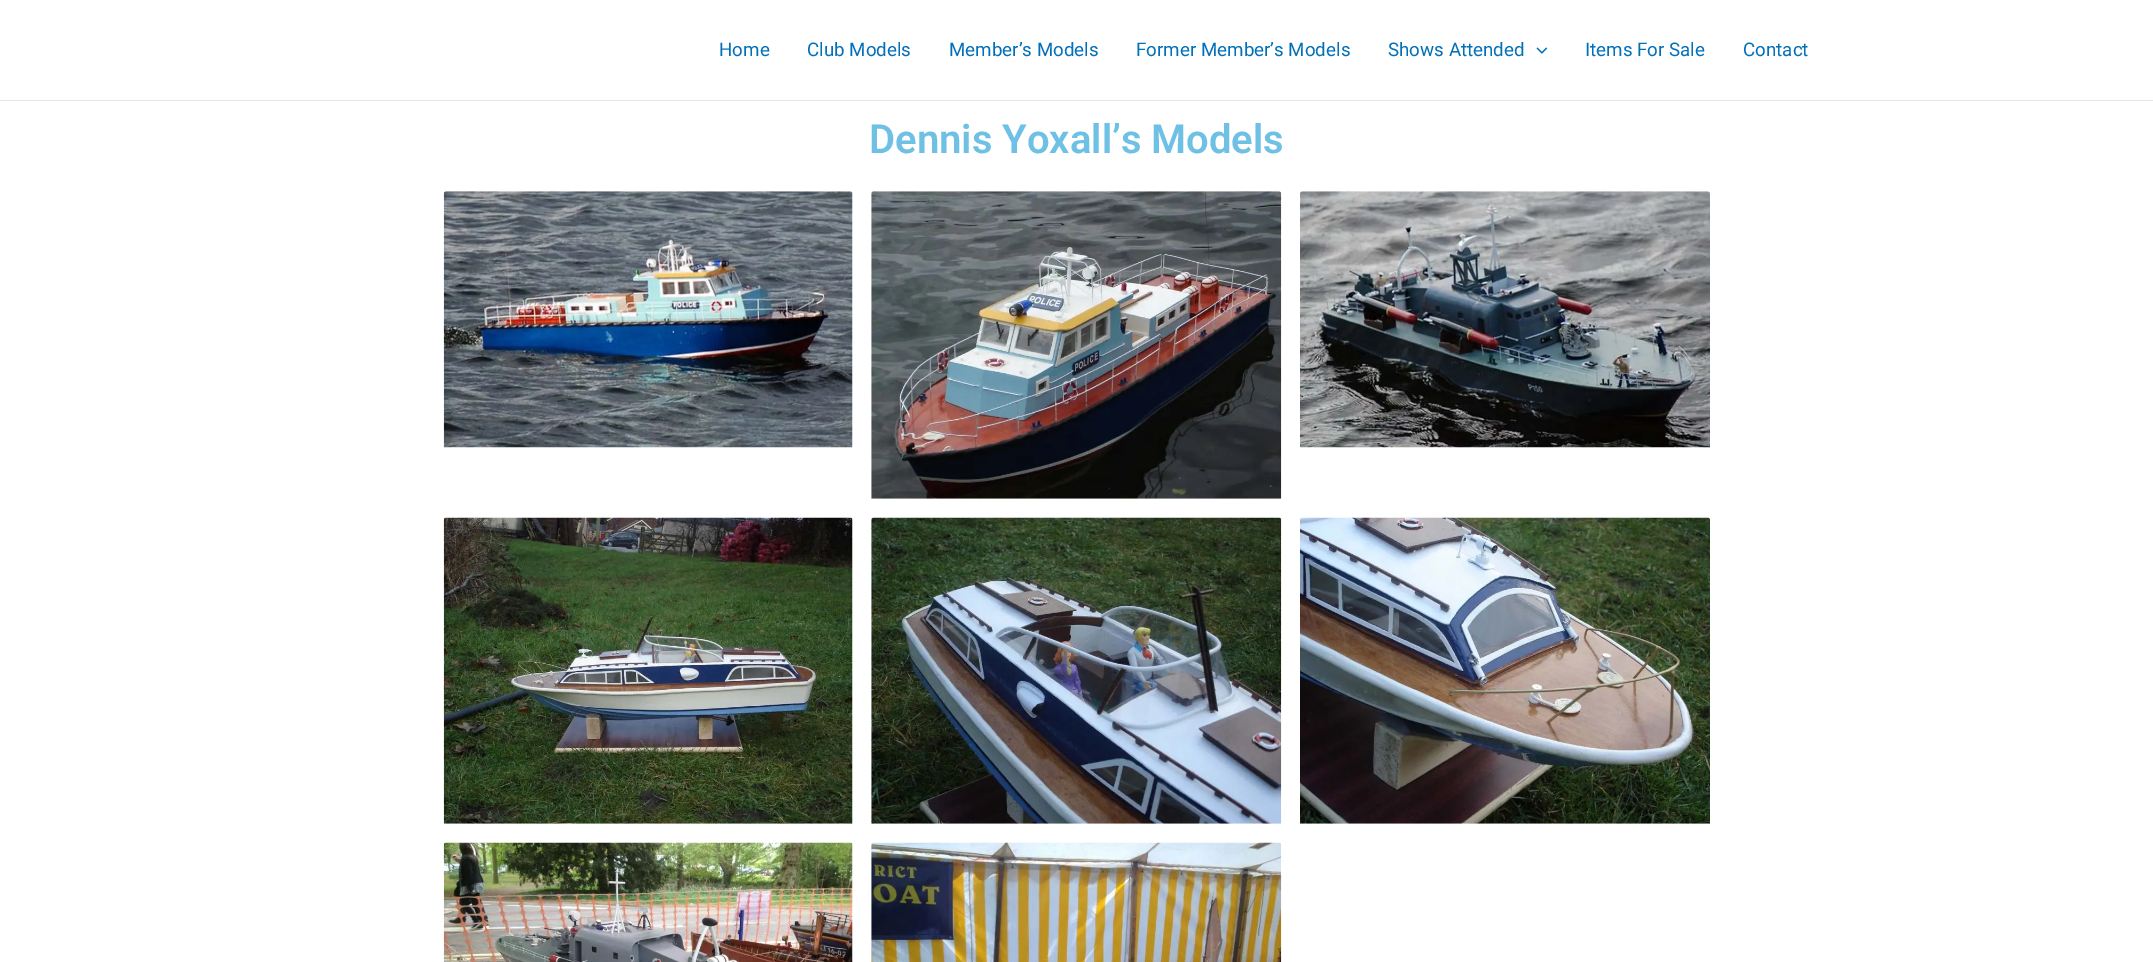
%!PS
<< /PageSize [2153 962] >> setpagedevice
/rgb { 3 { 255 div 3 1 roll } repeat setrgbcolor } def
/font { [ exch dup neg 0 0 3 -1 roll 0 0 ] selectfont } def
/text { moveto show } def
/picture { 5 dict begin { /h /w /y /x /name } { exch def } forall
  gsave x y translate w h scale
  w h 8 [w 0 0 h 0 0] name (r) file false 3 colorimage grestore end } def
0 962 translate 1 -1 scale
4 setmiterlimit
255 255 255 rgb
0 0 2153 962 rectfill
229 229 229 rgb
0 100 2153 1 rectfill
(img_01.rgb) 1536 47 12 7 picture
(img_02.rgb) 443 191 410 257 picture
(img_03.rgb) 871 191 411 308 picture
(img_04.rgb) 1300 191 410 257 picture
(img_05.rgb) 443 517 410 307 picture
(img_06.rgb) 871 517 411 307 picture
(img_07.rgb) 1300 517 410 307 picture
(img_08.rgb) 443 842 410 120 picture
(img_09.rgb) 871 842 411 120 picture
/Roboto-Regular 18.75 font
1 112 185 rgb
(Home) 719 56 text
(Club Models) 807 56 text
(Member’s Models) 949 56 text
(Former Member’s Models) 1136 56 text
(Shows Attended) 1388 56 text
(Items For Sale) 1585 56 text
(Contact) 1743 56 text
/Roboto-SemiBold 40 font
110 193 228 rgb
(Dennis Yoxall’s Models) 869 153 text
showpage
